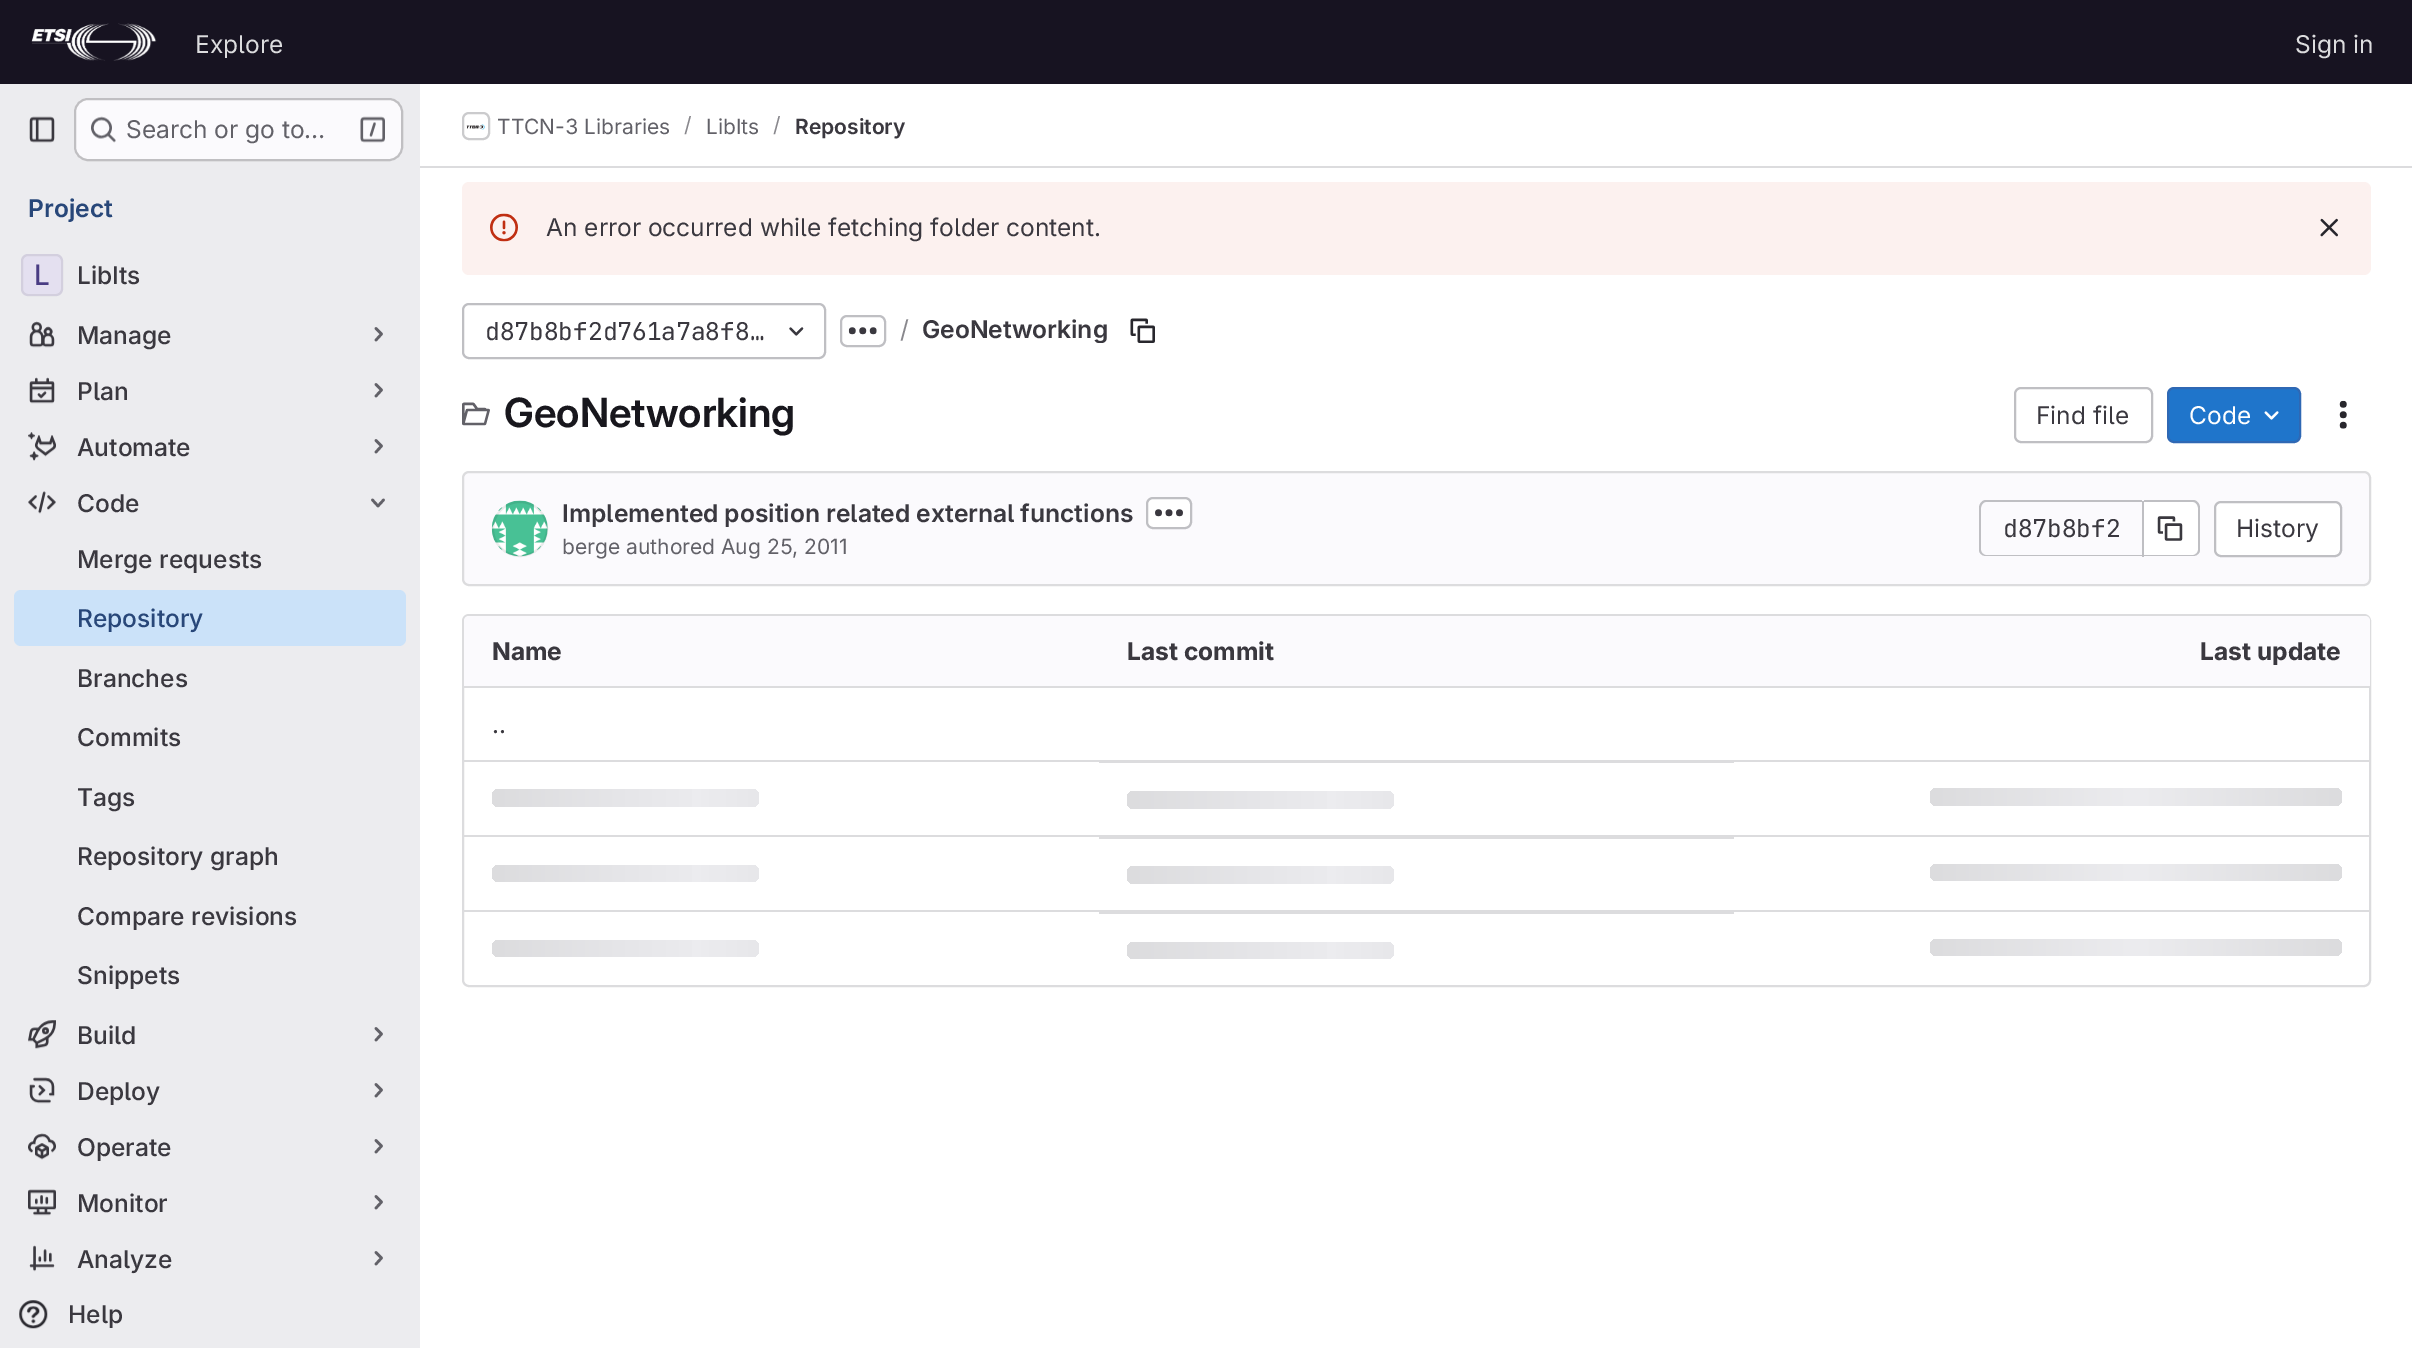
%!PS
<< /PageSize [2412 1348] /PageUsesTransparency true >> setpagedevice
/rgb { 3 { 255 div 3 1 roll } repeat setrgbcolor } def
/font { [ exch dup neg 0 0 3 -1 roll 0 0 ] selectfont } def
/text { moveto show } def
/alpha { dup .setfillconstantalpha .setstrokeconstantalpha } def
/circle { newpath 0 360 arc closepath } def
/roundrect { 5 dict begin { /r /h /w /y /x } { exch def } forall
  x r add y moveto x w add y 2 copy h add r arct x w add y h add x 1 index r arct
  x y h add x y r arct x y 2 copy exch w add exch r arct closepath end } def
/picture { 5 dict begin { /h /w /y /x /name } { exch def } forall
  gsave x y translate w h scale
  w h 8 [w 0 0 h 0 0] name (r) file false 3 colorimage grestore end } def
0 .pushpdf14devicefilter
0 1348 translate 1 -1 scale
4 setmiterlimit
255 255 255 rgb
0 0 2412 1348 rectfill
23 19 33 rgb
0 0 2412 84 rectfill
(img_01.rgb) 31 23 126 38 picture
236 236 239 rgb
0 84 420 1264 rectfill
(img_02.rgb) 29 116 26 27 picture
251 250 253 rgb
74 98 329 63 14 roundrect fill
0.24 alpha
5 5 6 rgb
2 setlinewidth
75 99 327 61 13 roundrect stroke
1 alpha
(img_03.rgb) 91 116 25 27 picture
(img_04.rgb) 360 116 25 27 picture
228 224 240 rgb
21 254 42 42 7 roundrect fill
0.08 alpha
5 5 6 rgb
22 255 40 40 6 roundrect stroke
1 alpha
(img_05.rgb) 29 321 26 27 picture
98 97 104 rgb
2.6 setlinewidth
1 setlinecap
1 setlinejoin
376 328.5 moveto 5.5 5.5 rlineto -5.5 6 rlineto stroke
(img_06.rgb) 29 377 26 27 picture
376 384.5 moveto 5.5 5.5 rlineto -5.5 6 rlineto stroke
(img_07.rgb) 28 432 28 29 picture
376 440.5 moveto 5.5 5.5 rlineto -5.5 6 rlineto stroke
(img_08.rgb) 28 491 28 23 picture
383.5 500 moveto -5.5 6 rlineto -5.5 -6 rlineto stroke
203 226 249 rgb
14 590 392 56 7 roundrect fill
(img_09.rgb) 28 1020 28 29 picture
98 97 104 rgb
376 1028.5 moveto 5.5 5.5 rlineto -5.5 6 rlineto stroke
(img_10.rgb) 29 1077 26 27 picture
376 1084.5 moveto 5.5 5.5 rlineto -5.5 6 rlineto stroke
(img_11.rgb) 28 1133 28 27 picture
376 1140.5 moveto 5.5 5.5 rlineto -5.5 6 rlineto stroke
(img_12.rgb) 28 1189 28 27 picture
376 1196.5 moveto 5.5 5.5 rlineto -5.5 6 rlineto stroke
(img_13.rgb) 29 1245 26 27 picture
376 1252.5 moveto 5.5 5.5 rlineto -5.5 6 rlineto stroke
(img_14.rgb) 19 1300 29 29 picture
220 220 222 rgb
420 166 1992 2 rectfill
2 setlinewidth
0 setlinecap
0 setlinejoin
463 113 26 26 6 roundrect stroke
(img_15.rgb) 466 124 19 6 picture
0.08 alpha
5 5 6 rgb
463 113 26 26 6 roundrect stroke
1 alpha
252 241 239 rgb
462 182 1909 93 7 roundrect fill
(img_16.rgb) 490 213 28 29 picture
(img_17.rgb) 2320 218 18 19 picture
191 191 195 rgb
463 304 362 54 6 roundrect stroke
(img_18.rgb) 789 327 15 9 picture
841 316 44 30 6 roundrect stroke
(img_19.rgb) 848 327 29 8 picture
(img_20.rgb) 1130 318 25 25 picture
(img_21.rgb) 462 402 28 24 picture
2015 388 137 54 6 roundrect stroke
31 117 203 rgb
2168 388 132 54 6 roundrect gsave fill grestore
47 104 180 rgb
stroke
(img_22.rgb) 2264 411 15 9 picture
(img_23.rgb) 2339 400 8 29 picture
251 250 253 rgb
463 472 1907 113 6 roundrect gsave fill grestore
220 220 222 rgb
stroke
(img_24.rgb) 491 500 57 57 picture
0.08 alpha
5 5 6 rgb
520 529 27 circle stroke
1 alpha
255 255 255 rgb
1147 498 44 30 6 roundrect gsave fill grestore
191 191 195 rgb
stroke
(img_25.rgb) 1155 509 28 8 picture
1986 500 moveto 156 0 rlineto 0 56 rlineto -156 0 rlineto -4 0 -7 -3 -7 -6 rcurveto 0 -42 rlineto 0 -4 3 -8 7 -8 rcurveto closepath 1986 502 moveto 156 0 rlineto 0 53 rlineto -156 0 rlineto -3 0 -5 -3 -5 -5 rcurveto 0 -42 rlineto 0 -3 2 -6 5 -6 rcurveto closepath eofill
255 255 255 rgb
2144 502 moveto 49 0 rlineto 3 0 5 2 5 5 rcurveto 0 43 rlineto 0 3 -2 5 -5 5 rcurveto -49 0 rlineto closepath fill
191 191 195 rgb
2144 500 moveto 49 0 rlineto 4 0 7 4 7 8 rcurveto 0 42 rlineto 0 3 -3 6 -7 6 rcurveto -49 0 rlineto closepath 2144 502 moveto 49 0 rlineto 3 0 5 3 5 6 rcurveto 0 42 rlineto 0 2 -2 5 -5 5 rcurveto -49 0 rlineto closepath eofill
2142 501 2 56 rectfill
(img_26.rgb) 2157 516 26 25 picture
255 255 255 rgb
2215 502 126 54 6 roundrect gsave fill grestore
191 191 195 rgb
stroke
220 220 222 rgb
463 615 1907 371 6 roundrect stroke
251 250 253 rgb
469 616 moveto 630 0 rlineto 0 72 rlineto -635 0 rlineto 0 -67 rlineto 0 -3 2 -5 5 -5 rcurveto closepath fill
1099 616 635 70 rectfill
1734 616 moveto 631 0 rlineto 3 0 5 2 5 5 rcurveto 0 67 rlineto -636 0 rlineto closepath fill
220 220 222 rgb
464 760 1906 2 rectfill
464 686 1906 2 rectfill
464 835 1906 2 rectfill
gsave 492 789 267 18 7 roundrect clip newpath
<< /ShadingType 2 /ColorSpace /DeviceRGB /Coords [492 789 903 789] /Extend [true true] /Function << /FunctionType 3 /Domain [0 1] /Functions [<< /FunctionType 2 /Domain [0 1] /C0 [0.863 0.863 0.871] /C1 [0.925 0.925 0.937] /N 1 >> << /FunctionType 2 /Domain [0 1] /C0 [0.925 0.925 0.937] /C1 [0.863 0.863 0.871] /N 1 >>] /Bounds [0.5] /Encode [0 1 0 1] >> >> shfill grestore
1099 762 635 1 rectfill
gsave 1127 791 267 18 7 roundrect clip newpath
<< /ShadingType 2 /ColorSpace /DeviceRGB /Coords [1127 791 1538 791] /Extend [true true] /Function << /FunctionType 3 /Domain [0 1] /Functions [<< /FunctionType 2 /Domain [0 1] /C0 [0.863 0.863 0.871] /C1 [0.925 0.925 0.937] /N 1 >> << /FunctionType 2 /Domain [0 1] /C0 [0.925 0.925 0.937] /C1 [0.863 0.863 0.871] /N 1 >>] /Bounds [0.5] /Encode [0 1 0 1] >> >> shfill grestore
gsave 1930 788 412 18 7 roundrect clip newpath
<< /ShadingType 2 /ColorSpace /DeviceRGB /Coords [1930 788 2342 788] /Extend [true true] /Function << /FunctionType 3 /Domain [0 1] /Functions [<< /FunctionType 2 /Domain [0 1] /C0 [0.863 0.863 0.871] /C1 [0.925 0.925 0.937] /N 1 >> << /FunctionType 2 /Domain [0 1] /C0 [0.925 0.925 0.937] /C1 [0.863 0.863 0.871] /N 1 >>] /Bounds [0.5] /Encode [0 1 0 1] >> >> shfill grestore
464 910 1906 2 rectfill
gsave 492 865 267 17 7 roundrect clip newpath
<< /ShadingType 2 /ColorSpace /DeviceRGB /Coords [492 865 903 865] /Extend [true true] /Function << /FunctionType 3 /Domain [0 1] /Functions [<< /FunctionType 2 /Domain [0 1] /C0 [0.863 0.863 0.871] /C1 [0.925 0.925 0.937] /N 1 >> << /FunctionType 2 /Domain [0 1] /C0 [0.925 0.925 0.937] /C1 [0.863 0.863 0.871] /N 1 >>] /Bounds [0.5] /Encode [0 1 0 1] >> >> shfill grestore
1099 837 635 2 rectfill
gsave 1127 866 267 18 7 roundrect clip newpath
<< /ShadingType 2 /ColorSpace /DeviceRGB /Coords [1127 866 1538 866] /Extend [true true] /Function << /FunctionType 3 /Domain [0 1] /Functions [<< /FunctionType 2 /Domain [0 1] /C0 [0.863 0.863 0.871] /C1 [0.925 0.925 0.937] /N 1 >> << /FunctionType 2 /Domain [0 1] /C0 [0.925 0.925 0.937] /C1 [0.863 0.863 0.871] /N 1 >>] /Bounds [0.5] /Encode [0 1 0 1] >> >> shfill grestore
gsave 1930 864 412 17 7 roundrect clip newpath
<< /ShadingType 2 /ColorSpace /DeviceRGB /Coords [1930 864 2342 864] /Extend [true true] /Function << /FunctionType 3 /Domain [0 1] /Functions [<< /FunctionType 2 /Domain [0 1] /C0 [0.863 0.863 0.871] /C1 [0.925 0.925 0.937] /N 1 >> << /FunctionType 2 /Domain [0 1] /C0 [0.925 0.925 0.937] /C1 [0.863 0.863 0.871] /N 1 >>] /Bounds [0.5] /Encode [0 1 0 1] >> >> shfill grestore
gsave 492 940 267 17 7 roundrect clip newpath
<< /ShadingType 2 /ColorSpace /DeviceRGB /Coords [492 940 903 940] /Extend [true true] /Function << /FunctionType 3 /Domain [0 1] /Functions [<< /FunctionType 2 /Domain [0 1] /C0 [0.863 0.863 0.871] /C1 [0.925 0.925 0.937] /N 1 >> << /FunctionType 2 /Domain [0 1] /C0 [0.925 0.925 0.937] /C1 [0.863 0.863 0.871] /N 1 >>] /Bounds [0.5] /Encode [0 1 0 1] >> >> shfill grestore
1099 912 635 2 rectfill
gsave 1127 942 267 17 7 roundrect clip newpath
<< /ShadingType 2 /ColorSpace /DeviceRGB /Coords [1127 942 1538 942] /Extend [true true] /Function << /FunctionType 3 /Domain [0 1] /Functions [<< /FunctionType 2 /Domain [0 1] /C0 [0.863 0.863 0.871] /C1 [0.925 0.925 0.937] /N 1 >> << /FunctionType 2 /Domain [0 1] /C0 [0.925 0.925 0.937] /C1 [0.863 0.863 0.871] /N 1 >>] /Bounds [0.5] /Encode [0 1 0 1] >> >> shfill grestore
gsave 1930 939 412 17 7 roundrect clip newpath
<< /ShadingType 2 /ColorSpace /DeviceRGB /Coords [1930 939 2342 939] /Extend [true true] /Function << /FunctionType 3 /Domain [0 1] /Functions [<< /FunctionType 2 /Domain [0 1] /C0 [0.863 0.863 0.871] /C1 [0.925 0.925 0.937] /N 1 >> << /FunctionType 2 /Domain [0 1] /C0 [0.925 0.925 0.937] /C1 [0.863 0.863 0.871] /N 1 >>] /Bounds [0.5] /Encode [0 1 0 1] >> >> shfill grestore
/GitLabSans-Regular 24.5 font
(Explore) 195 53 text
(Sign in) 2295 53 text
98 97 104 rgb
(Search or go to…) 126 138 text
/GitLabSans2-SemiBold 24.5 font
40 71 121 rgb
(Project) 28 217 text
/GitLabSans2-Medium 28 font
73 60 131 rgb
(L) 34 285 text
/GitLabSans-Medium 24.5 font
58 56 63 rgb
(LibIts) 77 284 text
(Manage) 77 344 text
(Plan) 77 400 text
(Automate) 77 456 text
(Code) 77 512 text
(Merge requests) 77 568 text
40 71 121 rgb
(Repository) 77 627 text
58 56 63 rgb
(Branches) 77 687 text
(Commits) 77 746 text
(Tags) 77 806 text
(Repository graph) 77 865 text
(Compare revisions) 77 925 text
(Snippets) 77 984 text
(Build) 77 1044 text
(Deploy) 77 1100 text
(Operate) 77 1156 text
(Monitor) 77 1212 text
(Analyze) 77 1268 text
(Help) 68 1323 text
/GitLabSans-Regular 21 font
98 97 104 rgb
(TTCN-3 Libraries) 497 134 text
137 136 141 rgb
(/) 684 132 text
98 97 104 rgb
(LibIts) 706 134 text
137 136 141 rgb
(/) 773 132 text
/GitLabSans2-SemiBold 21 font
58 56 63 rgb
(Repository) 795 134 text
/GitLabSans-Regular 24.5 font
(An error occurred while fetching folder content.) 546 236 text
/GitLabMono-Regular 24.5 font
(d87b8bf2d761a7a8f8…) 485 340 text
/GitLabSans-Regular 24.5 font
137 136 141 rgb
(/) 900 338 text
gsave
922 313 186 30 7 roundrect clip newpath
/GitLabSans2-SemiBold 24.5 font
58 56 63 rgb
(GeoNetworking) 922 338 text
grestore
/GitLabSans-SemiBold 40.25 font
24 23 29 rgb
(GeoNetworking) 504 427 text
/GitLabSans-Regular 24.5 font
58 56 63 rgb
(Find file) 2036 424 text
255 255 255 rgb
(Code) 2189 424 text
/GitLabSans2-SemiBold 24.5 font
58 56 63 rgb
(Implemented position related external functions) 562 522 text
/GitLabSans-Regular 21 font
98 97 104 rgb
(berge authored Aug 25, 2011) 562 554 text
/GitLabMono-Regular 24.5 font
58 56 63 rgb
(d87b8bf2) 2003 537 text
/GitLabSans-Regular 24.5 font
(History) 2236 537 text
/GitLabSans-Bold 24.5 font
(Name) 492 660 text
(Last commit) 1127 660 text
(Last update) 2200 660 text
/GitLabSans-Regular 24.5 font
(..) 492 733 text
.poppdf14devicefilter showpage
